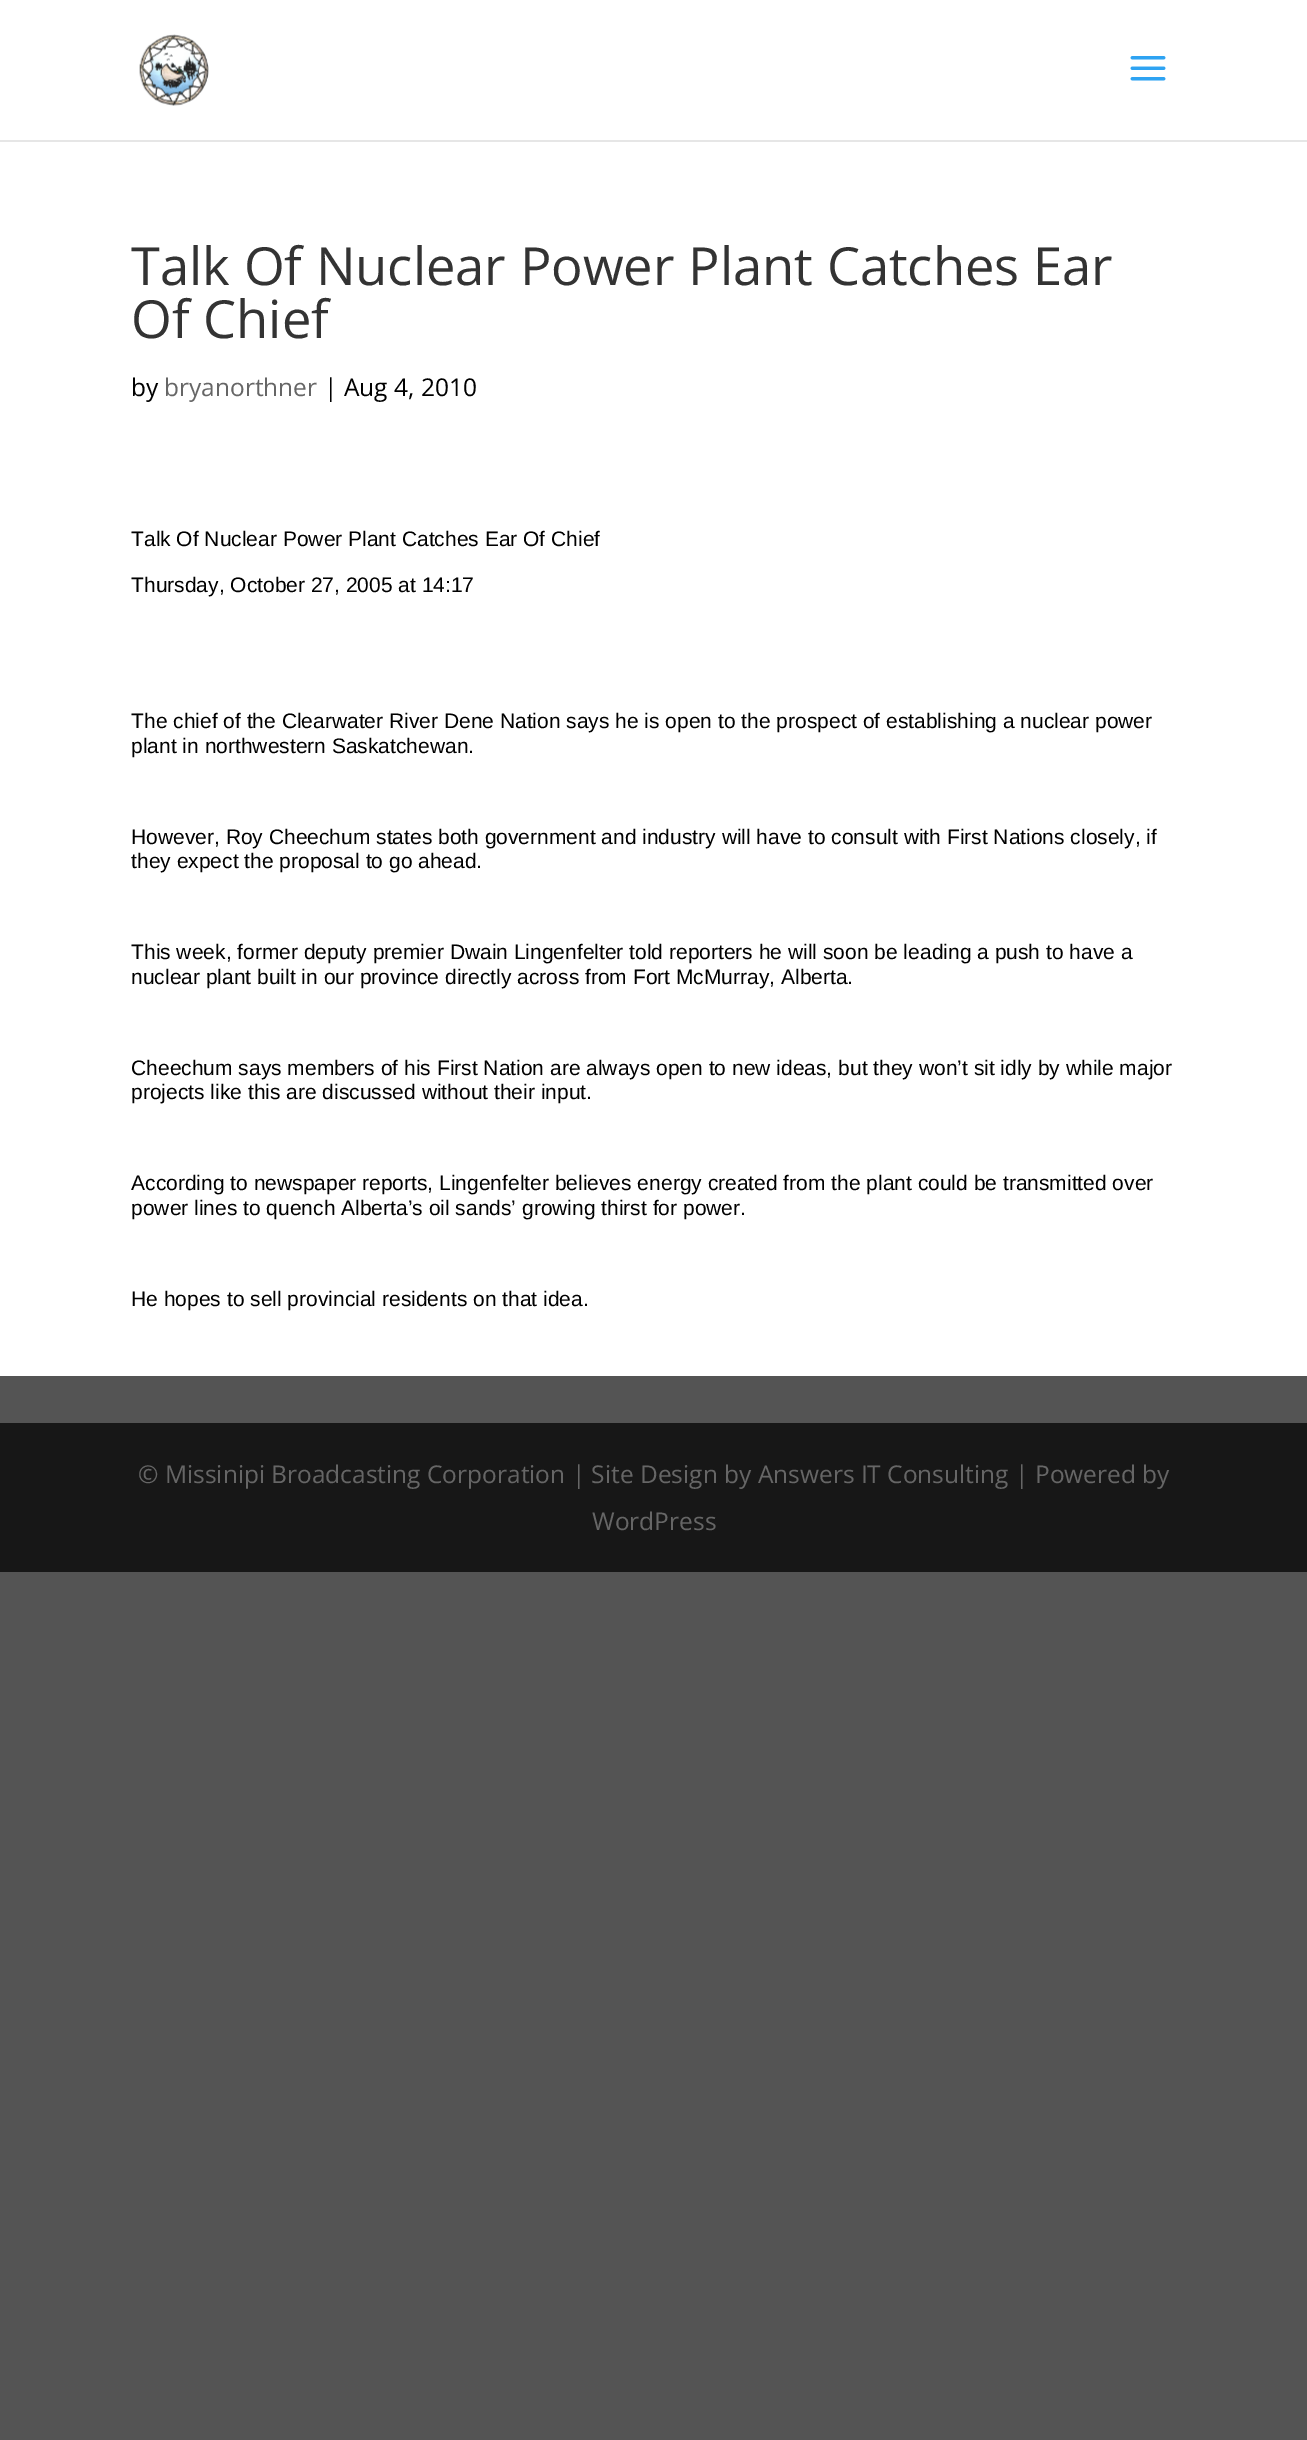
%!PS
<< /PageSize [1307 2440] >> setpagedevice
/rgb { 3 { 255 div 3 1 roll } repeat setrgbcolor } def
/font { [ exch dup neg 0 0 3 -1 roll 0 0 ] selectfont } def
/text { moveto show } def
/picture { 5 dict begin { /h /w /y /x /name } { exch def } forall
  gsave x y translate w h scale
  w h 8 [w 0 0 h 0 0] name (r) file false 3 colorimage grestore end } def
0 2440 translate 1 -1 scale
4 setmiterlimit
84 84 84 rgb
0 0 1307 2440 rectfill
230 230 230 rgb
0 140 1307 2 rectfill
255 255 255 rgb
0 0 1307 140 rectfill
(img_01.rgb) 139 34 70 72 picture
(img_02.rgb) 1130 56 36 25 picture
0 142 1307 1234 rectfill
23 23 23 rgb
0 1423 1307 149 rectfill
/OpenSans-Regular 52.5 font
51 51 51 rgb
(Talk Of Nuclear Power Plant Catches Ear) 131 285 text
(Of Chief) 131 338 text
/OpenSans-Regular 24.5 font
0 0 0 rgb
(by) 131 396 text
102 102 102 rgb
(bryanorthner) 164 396 text
0 0 0 rgb
(| Aug 4, 2010) 324 396 text
/LiberationSans-Regular 21 font
(Talk Of Nuclear Power Plant Catches Ear Of Chief) 131 546 text
(Thursday, October 27, 2005 at 14:17) 131 592 text
(The chief of the Clearwater River Dene Nation says he is open to the prospect of establishing a nuclear power) 131 728 text
(plant in northwestern Saskatchewan.) 131 753 text
(However, Roy Cheechum states both government and industry will have to consult with First Nations closely, if) 131 844 text
(they expect the proposal to go ahead.) 131 868 text
(This week, former deputy premier Dwain Lingenfelter told reporters he will soon be leading a push to have a) 131 959 text
(nuclear plant built in our province directly across from Fort McMurray, Alberta.) 131 984 text
(Cheechum says members of his First Nation are always open to new ideas, but they won’t sit idly by while major) 131 1075 text
(projects like this are discussed without their input.) 131 1099 text
(According to newspaper reports, Lingenfelter believes energy created from the plant could be transmitted over) 131 1190 text
(power lines to quench Alberta’s oil sands’ growing thirst for power.) 131 1215 text
(He hopes to sell provincial residents on that idea.) 131 1306 text
/OpenSans-Regular 24.5 font
102 102 102 rgb
(© Missinipi Broadcasting Corporation | Site Design by Answers IT Consulting | Powered by) 138 1483 text
(WordPress) 592 1530 text
showpage
